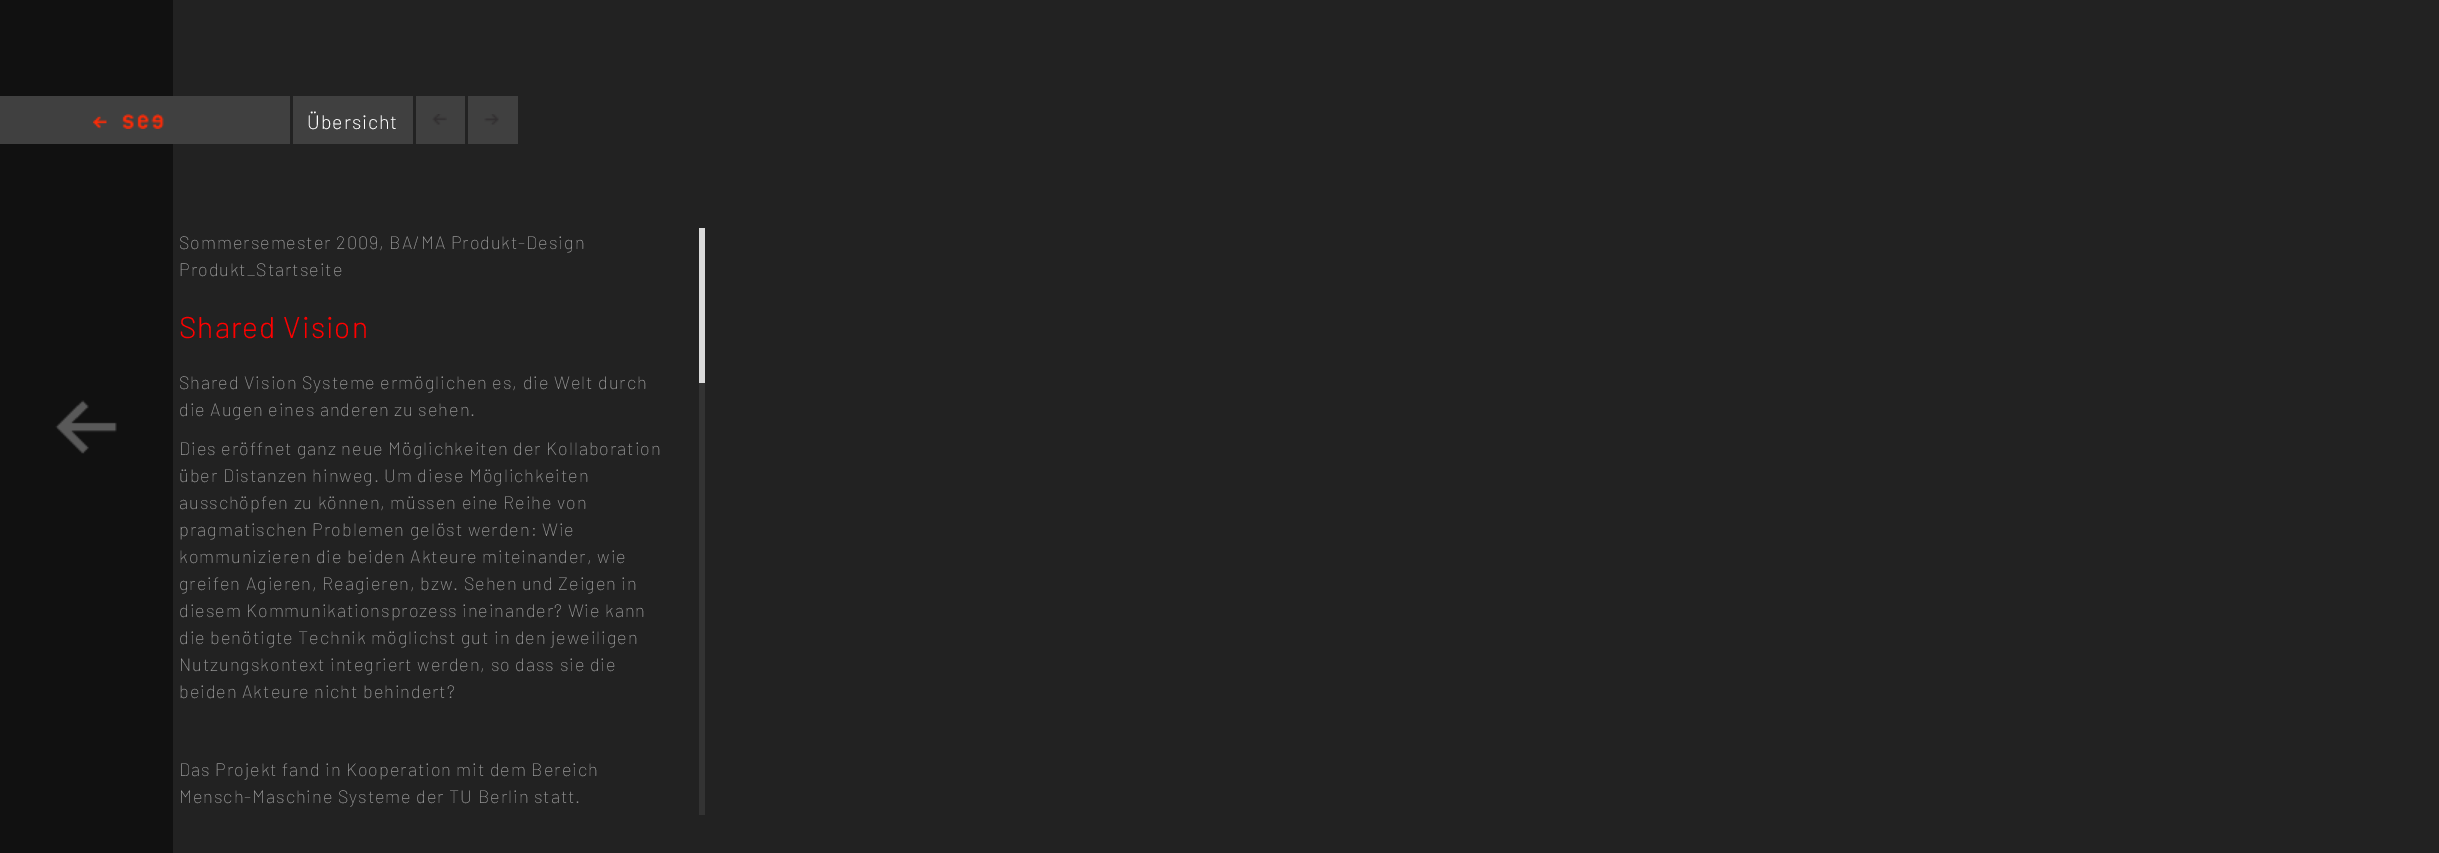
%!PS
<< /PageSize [2439 853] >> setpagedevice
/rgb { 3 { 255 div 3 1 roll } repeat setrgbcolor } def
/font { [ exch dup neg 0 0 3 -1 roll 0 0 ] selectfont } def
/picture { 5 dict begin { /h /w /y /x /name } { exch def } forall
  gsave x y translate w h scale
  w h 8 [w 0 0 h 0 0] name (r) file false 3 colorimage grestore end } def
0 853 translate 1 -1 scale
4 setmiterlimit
34 34 34 rgb
0 0 2439 853 rectfill
17 17 17 rgb
0 0 173 853 rectfill
(img_01.rgb) 55 400 62 54 picture
64 64 64 rgb
0 96 290 48 rectfill
(img_02.rgb) 93 114 71 15 picture
293 96 120 48 rectfill
416 96 49 48 rectfill
(img_03.rgb) 432 114 15 11 picture
468 96 50 48 rectfill
(img_04.rgb) 484 114 15 11 picture
51 51 51 rgb
699 383 6 432 rectfill
218 218 218 rgb
699 228 6 155 rectfill
/Barlow-Light 19.5 font
255 255 255 rgb
307 129 moveto 0.98 0 (Übersicht) ashow
/Barlow-ExtraLight 18 font
153 153 153 rgb
179 249 moveto 0.98 0 (Sommersemester 2009, BA/MA Produkt-Design) ashow
179 276 moveto 0.98 0 (Produkt_Startseite) ashow
/Barlow-Light 30 font
255 0 0 rgb
179 338 moveto 0.98 0 (Shared Vision) ashow
/Barlow-ExtraLight 18 font
153 153 153 rgb
179 389 moveto 0.98 0 (Shared Vision Systeme ermöglichen es, die Welt durch) ashow
179 416 moveto 0.98 0 (die Augen eines anderen zu sehen.) ashow
179 455 moveto 0.98 0 (Dies eröffnet ganz neue Möglichkeiten der Kollaboration) ashow
179 482 moveto 0.98 0 (über Distanzen hinweg. Um diese Möglichkeiten) ashow
179 509 moveto 0.98 0 (ausschöpfen zu können, müssen eine Reihe von) ashow
179 536 moveto 0.98 0 (pragmatischen Problemen gelöst werden: Wie) ashow
179 563 moveto 0.98 0 (kommunizieren die beiden Akteure miteinander, wie) ashow
179 590 moveto 0.98 0 (greifen Agieren, Reagieren, bzw. Sehen und Zeigen in) ashow
179 617 moveto 0.98 0 (diesem Kommunikationsprozess ineinander? Wie kann) ashow
179 644 moveto 0.98 0 (die benötigte Technik möglichst gut in den jeweiligen) ashow
179 671 moveto 0.98 0 (Nutzungskontext integriert werden, so dass sie die) ashow
179 698 moveto 0.98 0 (beiden Akteure nicht behindert?) ashow
179 776 moveto 0.98 0 (Das Projekt fand in Kooperation mit dem Bereich) ashow
179 803 moveto 0.98 0 (Mensch-Maschine Systeme der TU Berlin statt.) ashow
showpage
